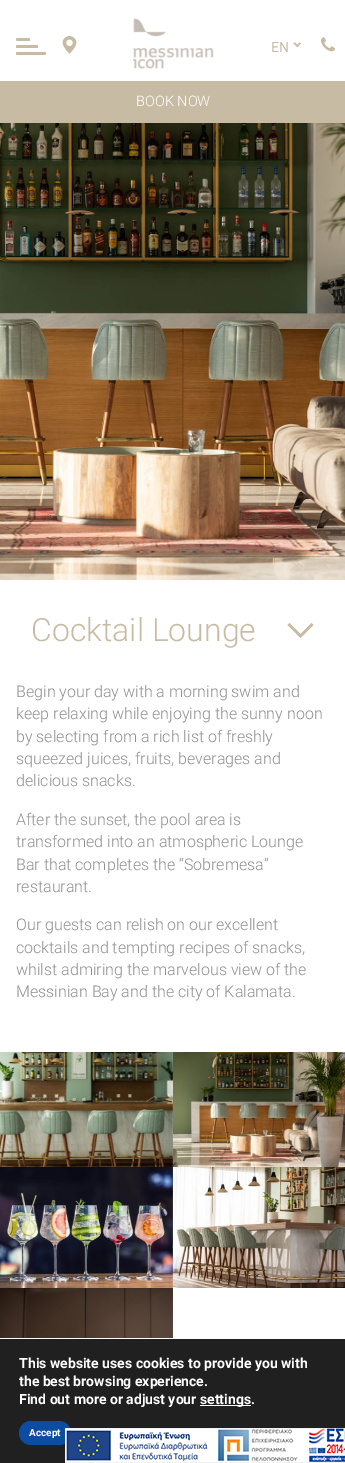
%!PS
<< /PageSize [345 1463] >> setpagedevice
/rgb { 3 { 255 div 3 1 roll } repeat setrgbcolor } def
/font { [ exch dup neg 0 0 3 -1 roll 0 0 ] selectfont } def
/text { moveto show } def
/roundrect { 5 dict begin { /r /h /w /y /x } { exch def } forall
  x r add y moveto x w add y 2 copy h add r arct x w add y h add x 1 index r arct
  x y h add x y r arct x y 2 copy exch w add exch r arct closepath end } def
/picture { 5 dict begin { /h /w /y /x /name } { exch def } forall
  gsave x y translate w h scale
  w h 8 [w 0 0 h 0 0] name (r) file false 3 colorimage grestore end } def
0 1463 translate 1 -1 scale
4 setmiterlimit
255 255 255 rgb
0 0 345 1463 rectfill
200 187 163 rgb
16 38 14 3 1.5 roundrect fill
16 45 22 3 1.5 roundrect fill
16 52 30 3 1.5 roundrect fill
(img_01.rgb) 62 36 15 18 picture
(img_02.rgb) 132 18 82 51 picture
299.5 42.5 moveto 1.5 1 rlineto -3.5 3.5 rlineto -1.5 -1 rlineto closepath fill
295 42.5 moveto 3.5 3.5 rlineto -1 1 rlineto -4 -3.5 rlineto closepath fill
(img_03.rgb) 321 37 14 15 picture
0 81 345 42 rectfill
(img_04.rgb) 0 123 345 457 picture
311.5 623 moveto -11 11 rlineto -11 -11 rlineto -2 2 rlineto 13 13 rlineto 13 -13 rlineto closepath fill
(img_05.rgb) 0 1052 173 115 picture
(img_06.rgb) 173 1052 172 115 picture
(img_07.rgb) 0 1167 173 121 picture
(img_08.rgb) 173 1167 172 121 picture
(img_09.rgb) 0 1288 173 50 picture
32 32 32 rgb
0 1339 345 124 rectfill
255 255 255 rgb
200 1405 51 1 rectfill
12 77 162 rgb
19 1421 52 24 12 roundrect fill
(img_10.rgb) 65 1428 280 35 picture
/Roboto-Regular 14 font
200 187 163 rgb
(EN) 271 52 text
/Roboto-Light 14.5 font
255 255 255 rgb
(BOOK NOW) 136 106 text
/Roboto-Light 32 font
200 187 163 rgb
(Cocktail Lounge) 31 641 text
/Roboto-Light 16 font
145 144 144 rgb
(Begin your day with a morning swim and) 16 697 text
(keep relaxing while enjoying the sunny noon) 16 719 text
(by selecting from a rich list of freshly) 16 742 text
(squeezed juices, fruits, beverages and) 16 764 text
(delicious snacks.) 16 786 text
(After the sunset, the pool area is) 16 825 text
(transformed into an atmospheric Lounge) 16 847 text
(Bar that completes the “Sobremesa”) 16 870 text
(restaurant.) 16 892 text
(Our guests can relish on our excellent) 16 930 text
(cocktails and tempting recipes of snacks,) 16 953 text
(whilst admiring the marvelous view of the) 16 975 text
(Messinian Bay and the city of Kalamata.) 16 997 text
/Roboto-Bold 14 font
255 255 255 rgb
(This website uses cookies to provide you with) 19 1368 text
(the best browsing experience.) 19 1386 text
(Find out more or adjust your) 19 1404 text
(settings.) 200 1404 text
/Roboto-Bold 10 font
(Accept) 29 1436 text
showpage
